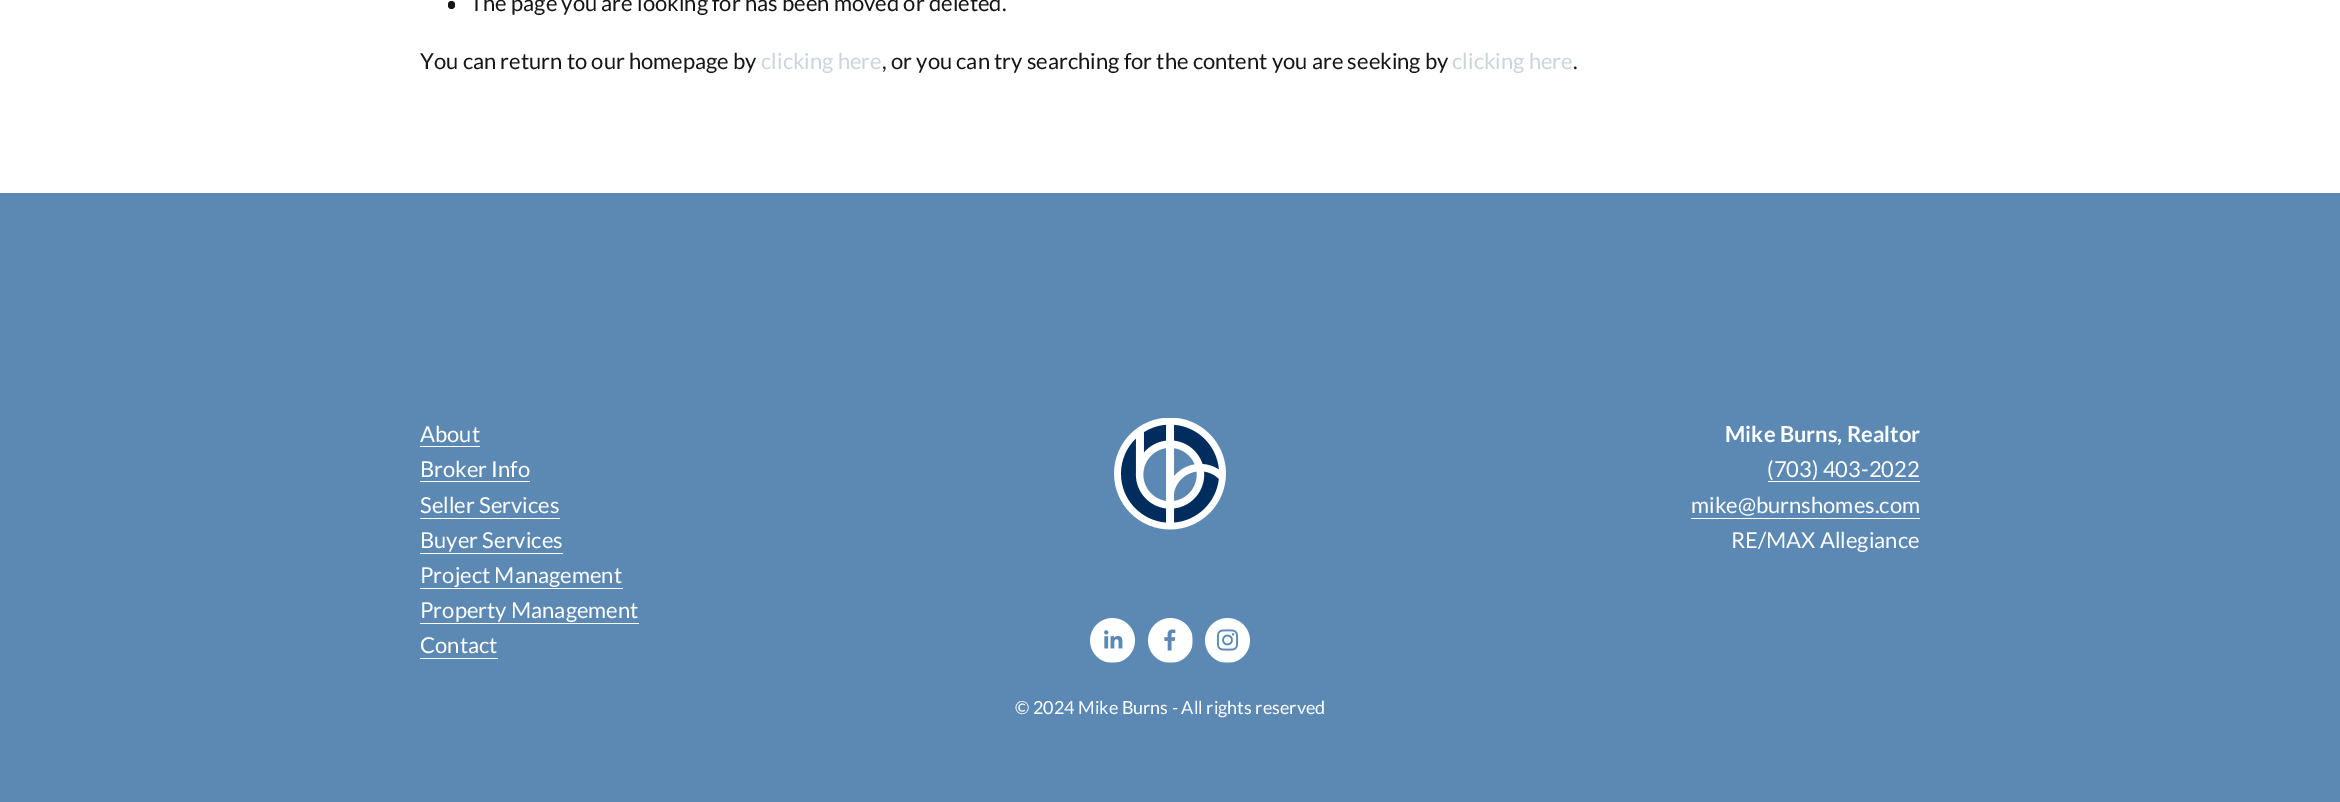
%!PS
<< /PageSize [2340 802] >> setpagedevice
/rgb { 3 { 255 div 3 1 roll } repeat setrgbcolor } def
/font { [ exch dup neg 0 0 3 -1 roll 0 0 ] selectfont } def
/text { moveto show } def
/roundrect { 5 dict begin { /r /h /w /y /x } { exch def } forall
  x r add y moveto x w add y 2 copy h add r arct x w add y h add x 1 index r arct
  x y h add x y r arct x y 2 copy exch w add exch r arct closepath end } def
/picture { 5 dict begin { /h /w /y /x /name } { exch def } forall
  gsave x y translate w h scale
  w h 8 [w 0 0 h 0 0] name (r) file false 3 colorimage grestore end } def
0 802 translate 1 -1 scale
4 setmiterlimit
255 255 255 rgb
0 0 2340 802 rectfill
22 22 22 rgb
448 1 7 8 3.5 roundrect fill
91 137 180 rgb
0 193 2340 609 rectfill
255 255 255 rgb
420 446 60 1 rectfill
420 481 110 1 rectfill
420 518 140 1 rectfill
420 553 143 1 rectfill
420 588 203 1 rectfill
420 623 219 1 rectfill
420 658 78 1 rectfill
(img_01.rgb) 1114 418 112 112 picture
1768 481 152 1 rectfill
1691 518 229 1 rectfill
(img_02.rgb) 1090 618 45 45 picture
(img_03.rgb) 1148 618 45 45 picture
(img_04.rgb) 1205 618 45 45 picture
/Lato-Regular 22 font
22 22 22 rgb
(The page you are looking for has been moved or deleted.) 470 11 text
(You can return to our homepage by) 420 69 text
203 213 222 rgb
(clicking here) 761 69 text
22 22 22 rgb
(, or you can try searching for the content you are seeking by) 882 69 text
203 213 222 rgb
(clicking here) 1452 69 text
22 22 22 rgb
(.) 1573 69 text
255 255 255 rgb
(About) 420 442 text
(Broker Info) 420 477 text
(Seller Services) 420 513 text
(Buyer Services) 420 548 text
(Project Management) 420 583 text
(Property Management) 420 618 text
(Contact) 420 653 text
/Lato-Bold 22 font
(Mike Burns, Realtor) 1725 442 text
/Lato-Regular 22 font
(\(703\) 403-2022) 1767 477 text
(mike@burnshomes.com) 1691 513 text
(RE/MAX Allegiance) 1731 548 text
/Lato-Regular 18 font
(© 2024 Mike Burns - All rights reserved) 1015 714 text
showpage
